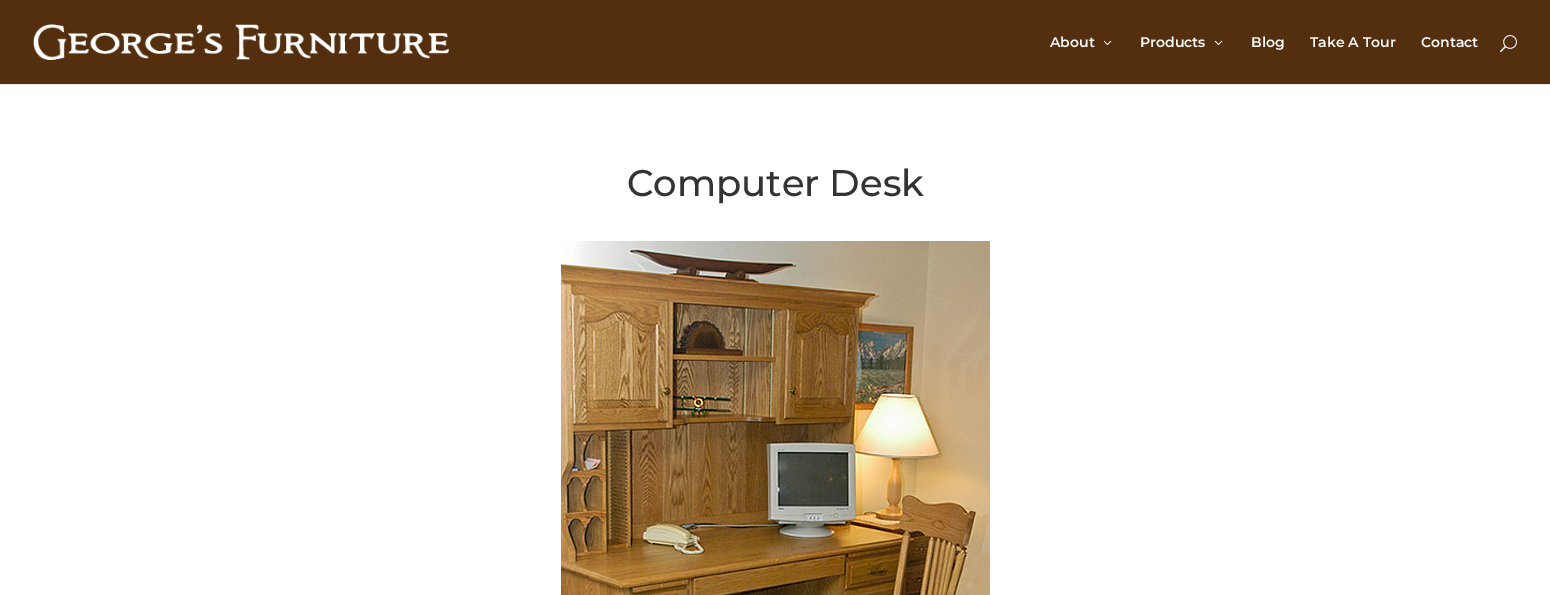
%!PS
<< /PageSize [1550 595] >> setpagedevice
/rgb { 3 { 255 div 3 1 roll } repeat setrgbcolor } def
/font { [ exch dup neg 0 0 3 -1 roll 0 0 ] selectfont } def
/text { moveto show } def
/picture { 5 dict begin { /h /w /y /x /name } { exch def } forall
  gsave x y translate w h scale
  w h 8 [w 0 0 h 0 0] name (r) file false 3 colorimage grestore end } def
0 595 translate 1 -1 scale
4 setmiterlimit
255 255 255 rgb
0 0 1550 595 rectfill
230 230 230 rgb
0 84 1550 1 rectfill
84 47 14 rgb
0 0 1550 84 rectfill
(img_01.rgb) 33 24 416 36 picture
(img_02.rgb) 1103 40 9 5 picture
(img_02.rgb) 1214 40 9 5 picture
(img_03.rgb) 1500 35 17 18 picture
(img_04.rgb) 561 241 429 354 picture
/Montserrat-SemiBold 14 font
255 255 255 rgb
(About) 1050 47 text
(Products) 1140 47 text
(Blog) 1251 47 text
(Take A Tour) 1310 47 text
(Contact) 1421 47 text
/Montserrat-Medium 37 font
51 51 51 rgb
(Computer Desk) 627 196 text
showpage
